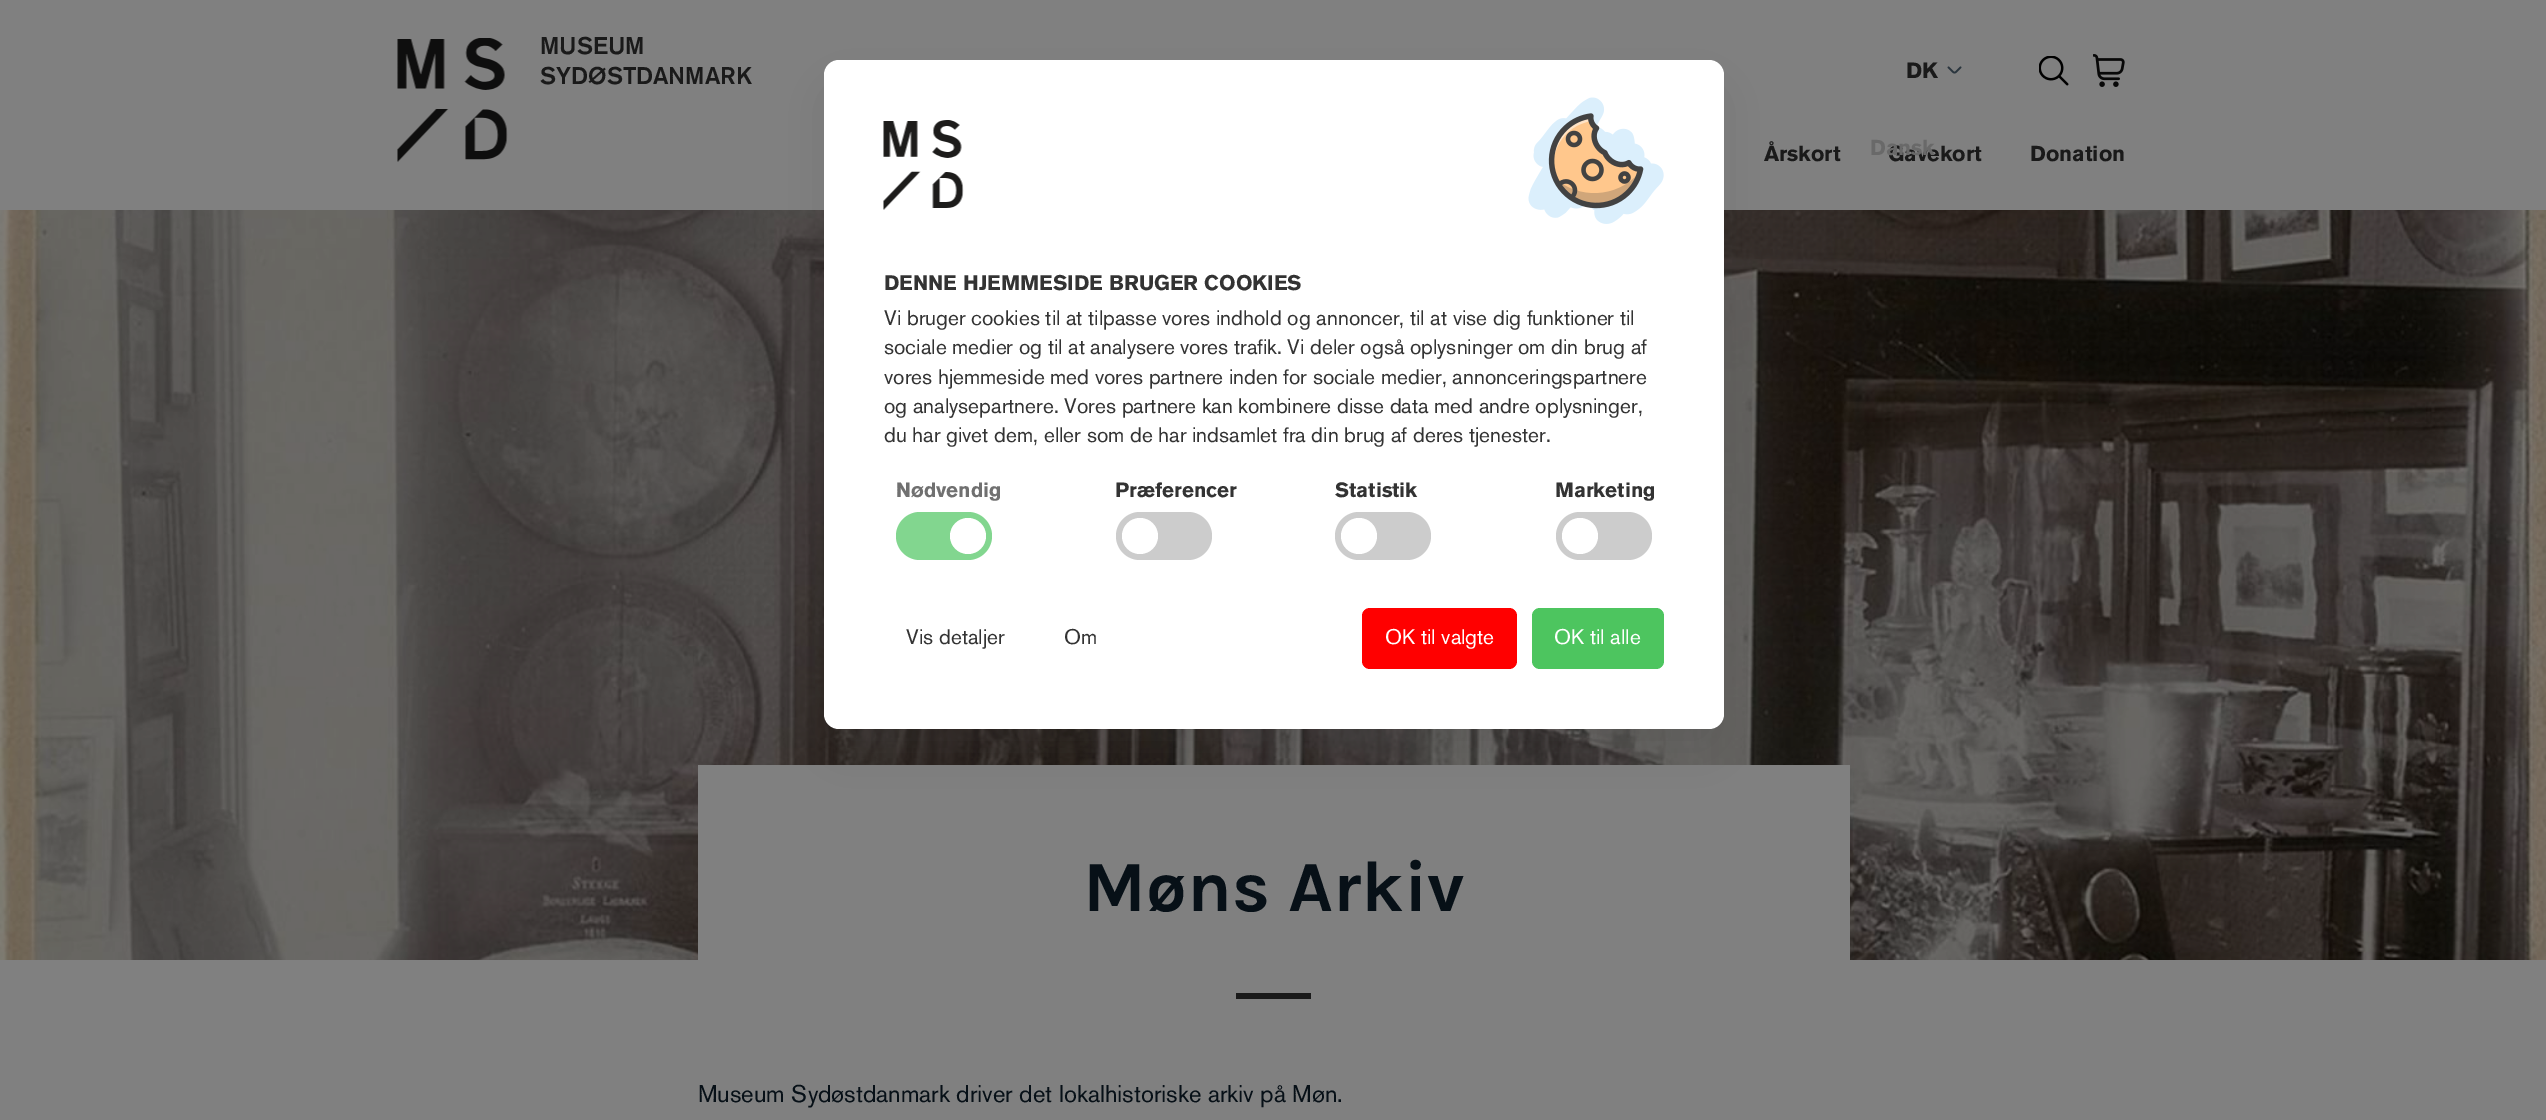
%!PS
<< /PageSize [2546 1120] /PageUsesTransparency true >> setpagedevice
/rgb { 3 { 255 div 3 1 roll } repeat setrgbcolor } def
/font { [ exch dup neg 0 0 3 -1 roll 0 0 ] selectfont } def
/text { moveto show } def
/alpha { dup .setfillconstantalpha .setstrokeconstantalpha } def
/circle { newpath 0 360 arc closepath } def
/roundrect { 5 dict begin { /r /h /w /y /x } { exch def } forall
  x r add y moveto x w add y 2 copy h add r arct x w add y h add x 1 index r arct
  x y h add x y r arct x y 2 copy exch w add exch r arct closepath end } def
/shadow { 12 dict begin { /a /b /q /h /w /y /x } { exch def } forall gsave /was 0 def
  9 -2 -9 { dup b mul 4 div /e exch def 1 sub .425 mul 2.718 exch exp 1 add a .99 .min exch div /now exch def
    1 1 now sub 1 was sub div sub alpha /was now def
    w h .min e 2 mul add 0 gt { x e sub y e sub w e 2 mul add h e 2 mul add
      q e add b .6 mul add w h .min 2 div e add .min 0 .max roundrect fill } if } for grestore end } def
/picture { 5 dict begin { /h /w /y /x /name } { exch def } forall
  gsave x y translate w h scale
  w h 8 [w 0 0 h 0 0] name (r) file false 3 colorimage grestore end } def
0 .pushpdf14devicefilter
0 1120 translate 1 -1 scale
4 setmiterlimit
128 128 128 rgb
0 0 2546 1120 rectfill
(img_01.rgb) 397 38 111 124 picture
(img_02.rgb) 1947 66 15 8 picture
(img_03.rgb) 2039 56 30 30 picture
(img_04.rgb) 2093 54 32 33 picture
(img_05.rgb) 0 210 2546 750 picture
698 765 1152 195 rectfill
26 26 26 rgb
1236 993 75 6 rectfill
68 68 68 rgb
842 102 864 633 0 24 0.33 shadow
255 255 255 rgb
824 60 900 669 15 roundrect fill
(img_06.rgb) 883 120 81 90 picture
(img_07.rgb) 1528 97 136 127 picture
130 214 143 rgb
896 512 96 48 24 roundrect fill
255 255 255 rgb
968 536 18 circle fill
204 204 204 rgb
1116 512 96 48 24 roundrect fill
255 255 255 rgb
1140 536 18 circle fill
204 204 204 rgb
1335 512 96 48 24 roundrect fill
255 255 255 rgb
1359 536 18 circle fill
204 204 204 rgb
1556 512 96 48 24 roundrect fill
255 255 255 rgb
1580 536 18 circle fill
255 0 0 rgb
1362 608 155 61 8 roundrect fill
77 197 95 rgb
1532 608 132 61 8 roundrect fill
/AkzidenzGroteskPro-Medium 24 font
26 26 26 rgb
(MUSEUM) 540 54 text
(SYDØSTDANMARK) 540 84 text
/AkzidenzGroteskPro-Bold 22 font
(DK) 1906 78 text
/AkzidenzGroteskPro-Bold 21.5 font
(Årskort) 1764 161 text
(Gavekort) 1888 161 text
105 105 105 rgb
(Dansk) 1870 155 text
26 26 26 rgb
(Donation) 2030 161 text
/Karla-Bold 72 font
7 16 23 rgb
(Møns Arkiv) 1083 911 text
/AkzidenzGroteskPro-Regular 24 font
(Museum Sydøstdanmark driver det lokalhistoriske arkiv på Møn.) 698 1102 text
/AkzidenzGroteskPro-Bold 21 font
51 51 51 rgb
(DENNE HJEMMESIDE BRUGER COOKIES) 884 290 text
/AkzidenzGroteskPro-Regular 21 font
(Vi bruger cookies til at tilpasse vores indhold og annoncer, til at vise dig funktioner til) 884 325 text
(sociale medier og til at analysere vores trafik. Vi deler også oplysninger om din brug af) 884 354 text
(vores hjemmeside med vores partnere inden for sociale medier, annonceringspartnere) 884 384 text
(og analysepartnere. Vores partnere kan kombinere disse data med andre oplysninger,) 884 413 text
(du har givet dem, eller som de har indsamlet fra din brug af deres tjenester.) 884 442 text
/AkzidenzGroteskPro-Bold 20.5 font
112 112 112 rgb
(Nødvendig) 896 497 text
51 51 51 rgb
(Præferencer) 1115 497 text
(Statistik) 1335 497 text
(Marketing) 1555 497 text
/AkzidenzGroteskPro-Regular 21 font
(Vis detaljer) 906 644 text
(Om) 1064 644 text
255 255 255 rgb
(OK til valgte) 1385 644 text
(OK til alle) 1554 644 text
.poppdf14devicefilter showpage
